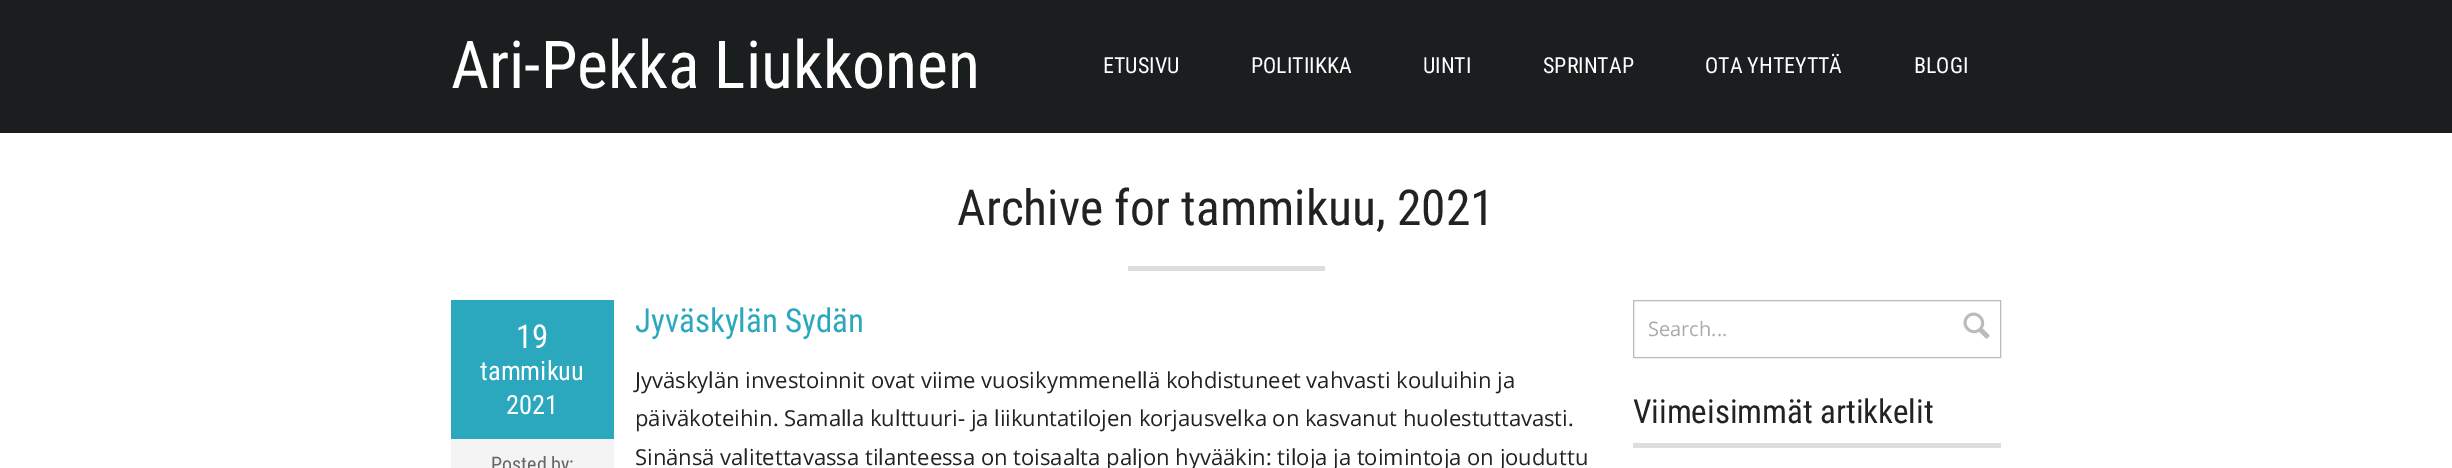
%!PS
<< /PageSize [2452 468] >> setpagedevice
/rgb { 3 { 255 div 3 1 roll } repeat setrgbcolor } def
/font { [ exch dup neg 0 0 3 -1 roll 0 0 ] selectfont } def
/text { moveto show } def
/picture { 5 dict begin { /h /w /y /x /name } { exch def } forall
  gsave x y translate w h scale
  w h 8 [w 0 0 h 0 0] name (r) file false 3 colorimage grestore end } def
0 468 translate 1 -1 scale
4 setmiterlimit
255 255 255 rgb
0 0 2452 468 rectfill
27 30 31 rgb
0 0 2452 133 rectfill
221 221 221 rgb
1128 266 197 5 rectfill
244 244 244 rgb
451 439 163 29 rectfill
43 168 189 rgb
451 300 163 139 rectfill
187 187 187 rgb
1633.5 300.5 367 57 rectstroke
(img_01.rgb) 1963 312 27 27 picture
221 221 221 rgb
1633 443 368 5 rectfill
/RobotoCondensed-Regular 66 font
255 255 255 rgb
(Ari-Pekka Liukkonen) 451 88 text
/RobotoCondensed-Regular 22 font
(ETUSIVU) 1103 73 text
(POLITIIKKA) 1251 73 text
(UINTI) 1423 73 text
(SPRINTAP) 1543 73 text
(OTA YHTEYTTÄ) 1705 73 text
(BLOGI) 1914 73 text
/RobotoCondensed-Regular 49.5 font
34 34 34 rgb
(Archive for tammikuu, 2021) 957 225 text
/RobotoCondensed-Regular 33 font
255 255 255 rgb
(19) 516 348 text
/RobotoCondensed-Regular 26.5 font
(tammikuu) 480 380 text
(2021) 506 414 text
/RobotoCondensed-Regular 20 font
102 102 102 rgb
(Posted by:) 491 471 text
/RobotoCondensed-Regular 33 font
43 168 189 rgb
(Jyväskylän Sydän) 635 332 text
/OpenSans-Regular 22 font
34 34 34 rgb
(Jyväskylän investoinnit ovat viime vuosikymmenellä kohdistuneet vahvasti kouluihin ja) 635 388 text
(päiväkoteihin. Samalla kulttuuri- ja liikuntatilojen korjausvelka on kasvanut huolestuttavasti.) 635 426 text
(Sinänsä valitettavassa tilanteessa on toisaalta paljon hyvääkin: tiloja ja toimintoja on jouduttu) 635 465 text
/OpenSans-Regular 20 font
170 170 170 rgb
(Search...) 1648 336 text
/RobotoCondensed-Regular 33 font
34 34 34 rgb
(Viimeisimmät artikkelit) 1633 423 text
showpage
